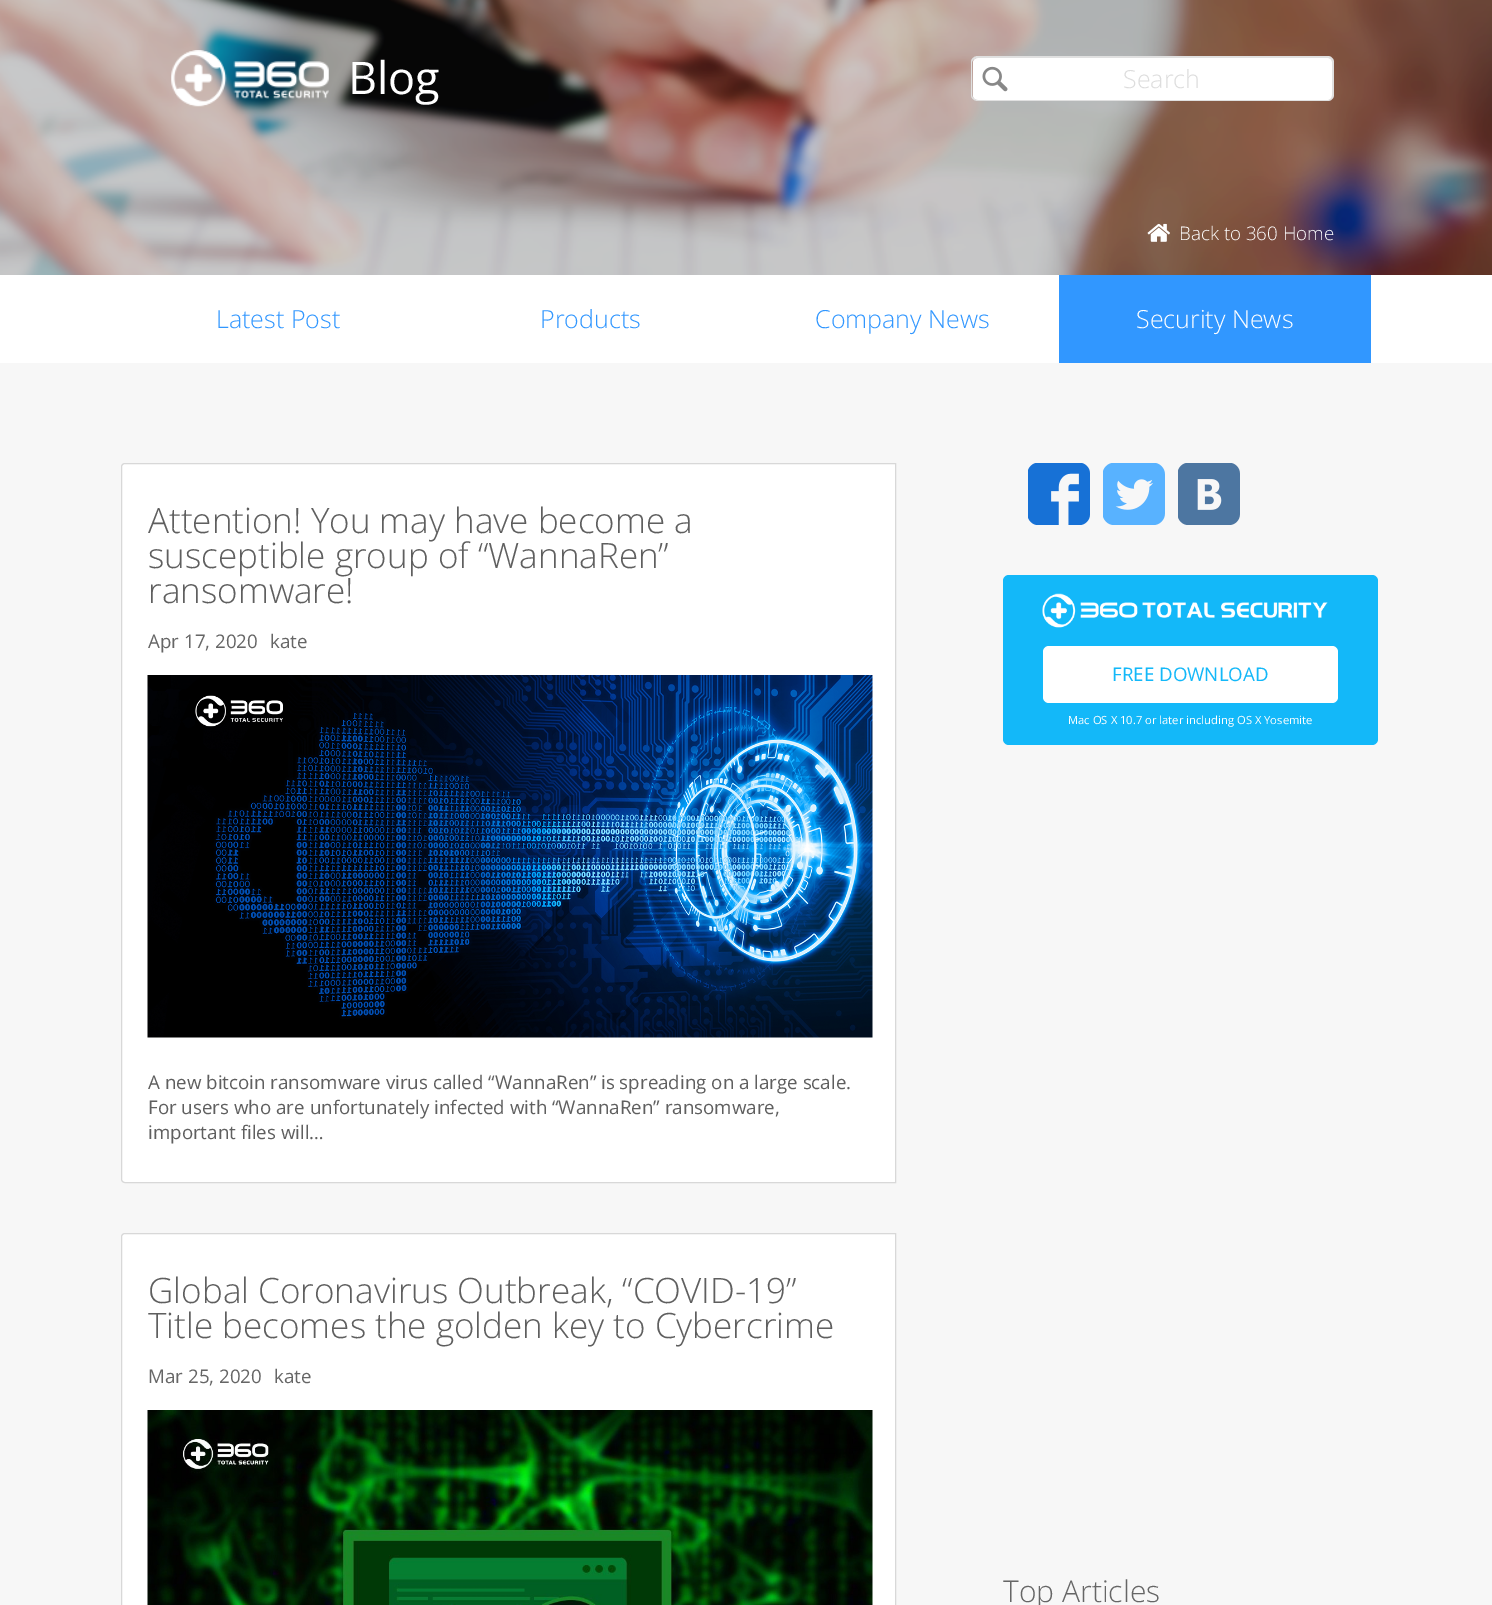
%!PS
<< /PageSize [1492 1605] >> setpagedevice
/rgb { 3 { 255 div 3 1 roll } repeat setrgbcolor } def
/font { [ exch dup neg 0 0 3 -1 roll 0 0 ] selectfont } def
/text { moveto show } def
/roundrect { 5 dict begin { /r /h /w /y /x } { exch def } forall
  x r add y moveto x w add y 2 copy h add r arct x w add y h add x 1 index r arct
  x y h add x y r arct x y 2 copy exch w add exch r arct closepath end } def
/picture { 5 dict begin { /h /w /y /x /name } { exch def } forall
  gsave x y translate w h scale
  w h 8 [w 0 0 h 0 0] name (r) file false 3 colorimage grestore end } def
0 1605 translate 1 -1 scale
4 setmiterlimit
247 247 247 rgb
0 0 1492 1605 rectfill
(img_01.rgb) 0 0 1492 275 picture
(img_02.rgb) 171 50 158 57 picture
255 255 255 rgb
978 58 moveto 38 0 rlineto 0 42 rlineto -38 0 rlineto -3 0 -5 -2 -5 -5 rcurveto 0 -32 rlineto 0 -3 2 -5 5 -5 rcurveto closepath fill
224 224 224 rgb
978 56 moveto 38 0 rlineto 0 45 rlineto -38 0 rlineto -4 0 -7 -3 -7 -6 rcurveto 0 -33 rlineto 0 -3 3 -6 7 -6 rcurveto closepath 978 58 moveto 38 0 rlineto 0 42 rlineto -38 0 rlineto -3 0 -6 -2 -6 -5 rcurveto 0 -33 rlineto 0 -2 3 -4 6 -4 rcurveto closepath eofill
(img_03.rgb) 982 66 26 26 picture
255 255 255 rgb
1016 58 moveto 312 0 rlineto 3 0 5 2 5 5 rcurveto 0 32 rlineto 0 3 -2 5 -5 5 rcurveto -312 0 rlineto closepath fill
224 224 224 rgb
1016 56 moveto 312 0 rlineto 3 0 6 3 6 6 rcurveto 0 33 rlineto 0 3 -3 6 -6 6 rcurveto -312 0 rlineto closepath 1016 58 moveto 312 0 rlineto 2 0 4 2 4 4 rcurveto 0 33 rlineto 0 3 -2 5 -4 5 rcurveto -312 0 rlineto closepath eofill
(img_04.rgb) 1147 223 23 19 picture
255 255 255 rgb
0 275 1492 88 rectfill
49 151 255 rgb
1059 275 312 88 rectfill
255 255 255 rgb
125 463.5 moveto 770.5 0 rlineto 0 719 rlineto -770.5 0 rlineto -2 0 -3.5 -1.5 -3.5 -3.5 rcurveto 0 -712 rlineto 0 -2 1.5 -3.5 3.5 -3.5 rcurveto closepath gsave fill grestore
216 216 216 rgb
stroke
(img_05.rgb) 147 675 726 363 picture
255 255 255 rgb
125 1233.5 moveto 770.5 0 rlineto 0 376 rlineto -770.5 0 rlineto -2 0 -3.5 -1.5 -3.5 -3.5 rcurveto 0 -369 rlineto 0 -2 1.5 -3.5 3.5 -3.5 rcurveto closepath gsave fill grestore
216 216 216 rgb
stroke
(img_06.rgb) 147 1410 726 195 picture
(img_07.rgb) 1028 463 62 62 picture
(img_08.rgb) 1103 463 62 62 picture
(img_09.rgb) 1178 463 62 62 picture
19 184 249 rgb
1003 575 375 170 6 roundrect fill
(img_10.rgb) 1042 593 286 35 picture
255 255 255 rgb
1043 646 295 57 6 roundrect fill
/OpenSans-Regular 45 font
(Blog) 348 94 text
/OpenSans-Light 25 font
221 221 221 rgb
(Search) 1123 88 text
/OpenSans-Light 18.75 font
255 255 255 rgb
(Back to 360 Home) 1179 240 text
/OpenSans-Light 25 font
49 151 255 rgb
(Latest Post) 216 328 text
(Products) 540 328 text
(Company News) 815 328 text
255 255 255 rgb
(Security News) 1136 328 text
/OpenSans-Light 35 font
95 95 95 rgb
(Attention! You may have become a) 148 533 text
(susceptible group of “WannaRen”) 148 568 text
(ransomware!) 148 603 text
/OpenSans-Regular 18.75 font
102 102 102 rgb
(Apr 17, 2020) 148 648 text
(kate) 270 648 text
95 95 95 rgb
(A new bitcoin ransomware virus called “WannaRen” is spreading on a large scale.) 148 1089 text
(For users who are unfortunately infected with “WannaRen” ransomware,) 148 1114 text
(important files will…) 148 1139 text
/OpenSans-Light 35 font
(Global Coronavirus Outbreak, “COVID-19”) 148 1303 text
(Title becomes the golden key to Cybercrime) 148 1338 text
/OpenSans-Regular 18.75 font
102 102 102 rgb
(Mar 25, 2020) 148 1383 text
(kate) 274 1383 text
19 184 249 rgb
(FREE DOWNLOAD) 1112 681 text
/OpenSans-Regular 11.25 font
255 255 255 rgb
(Mac OS X 10.7 or later including OS X Yosemite) 1068 724 text
/OpenSans-Light 30 font
102 102 102 rgb
(Top Articles) 1003 1602 text
showpage
